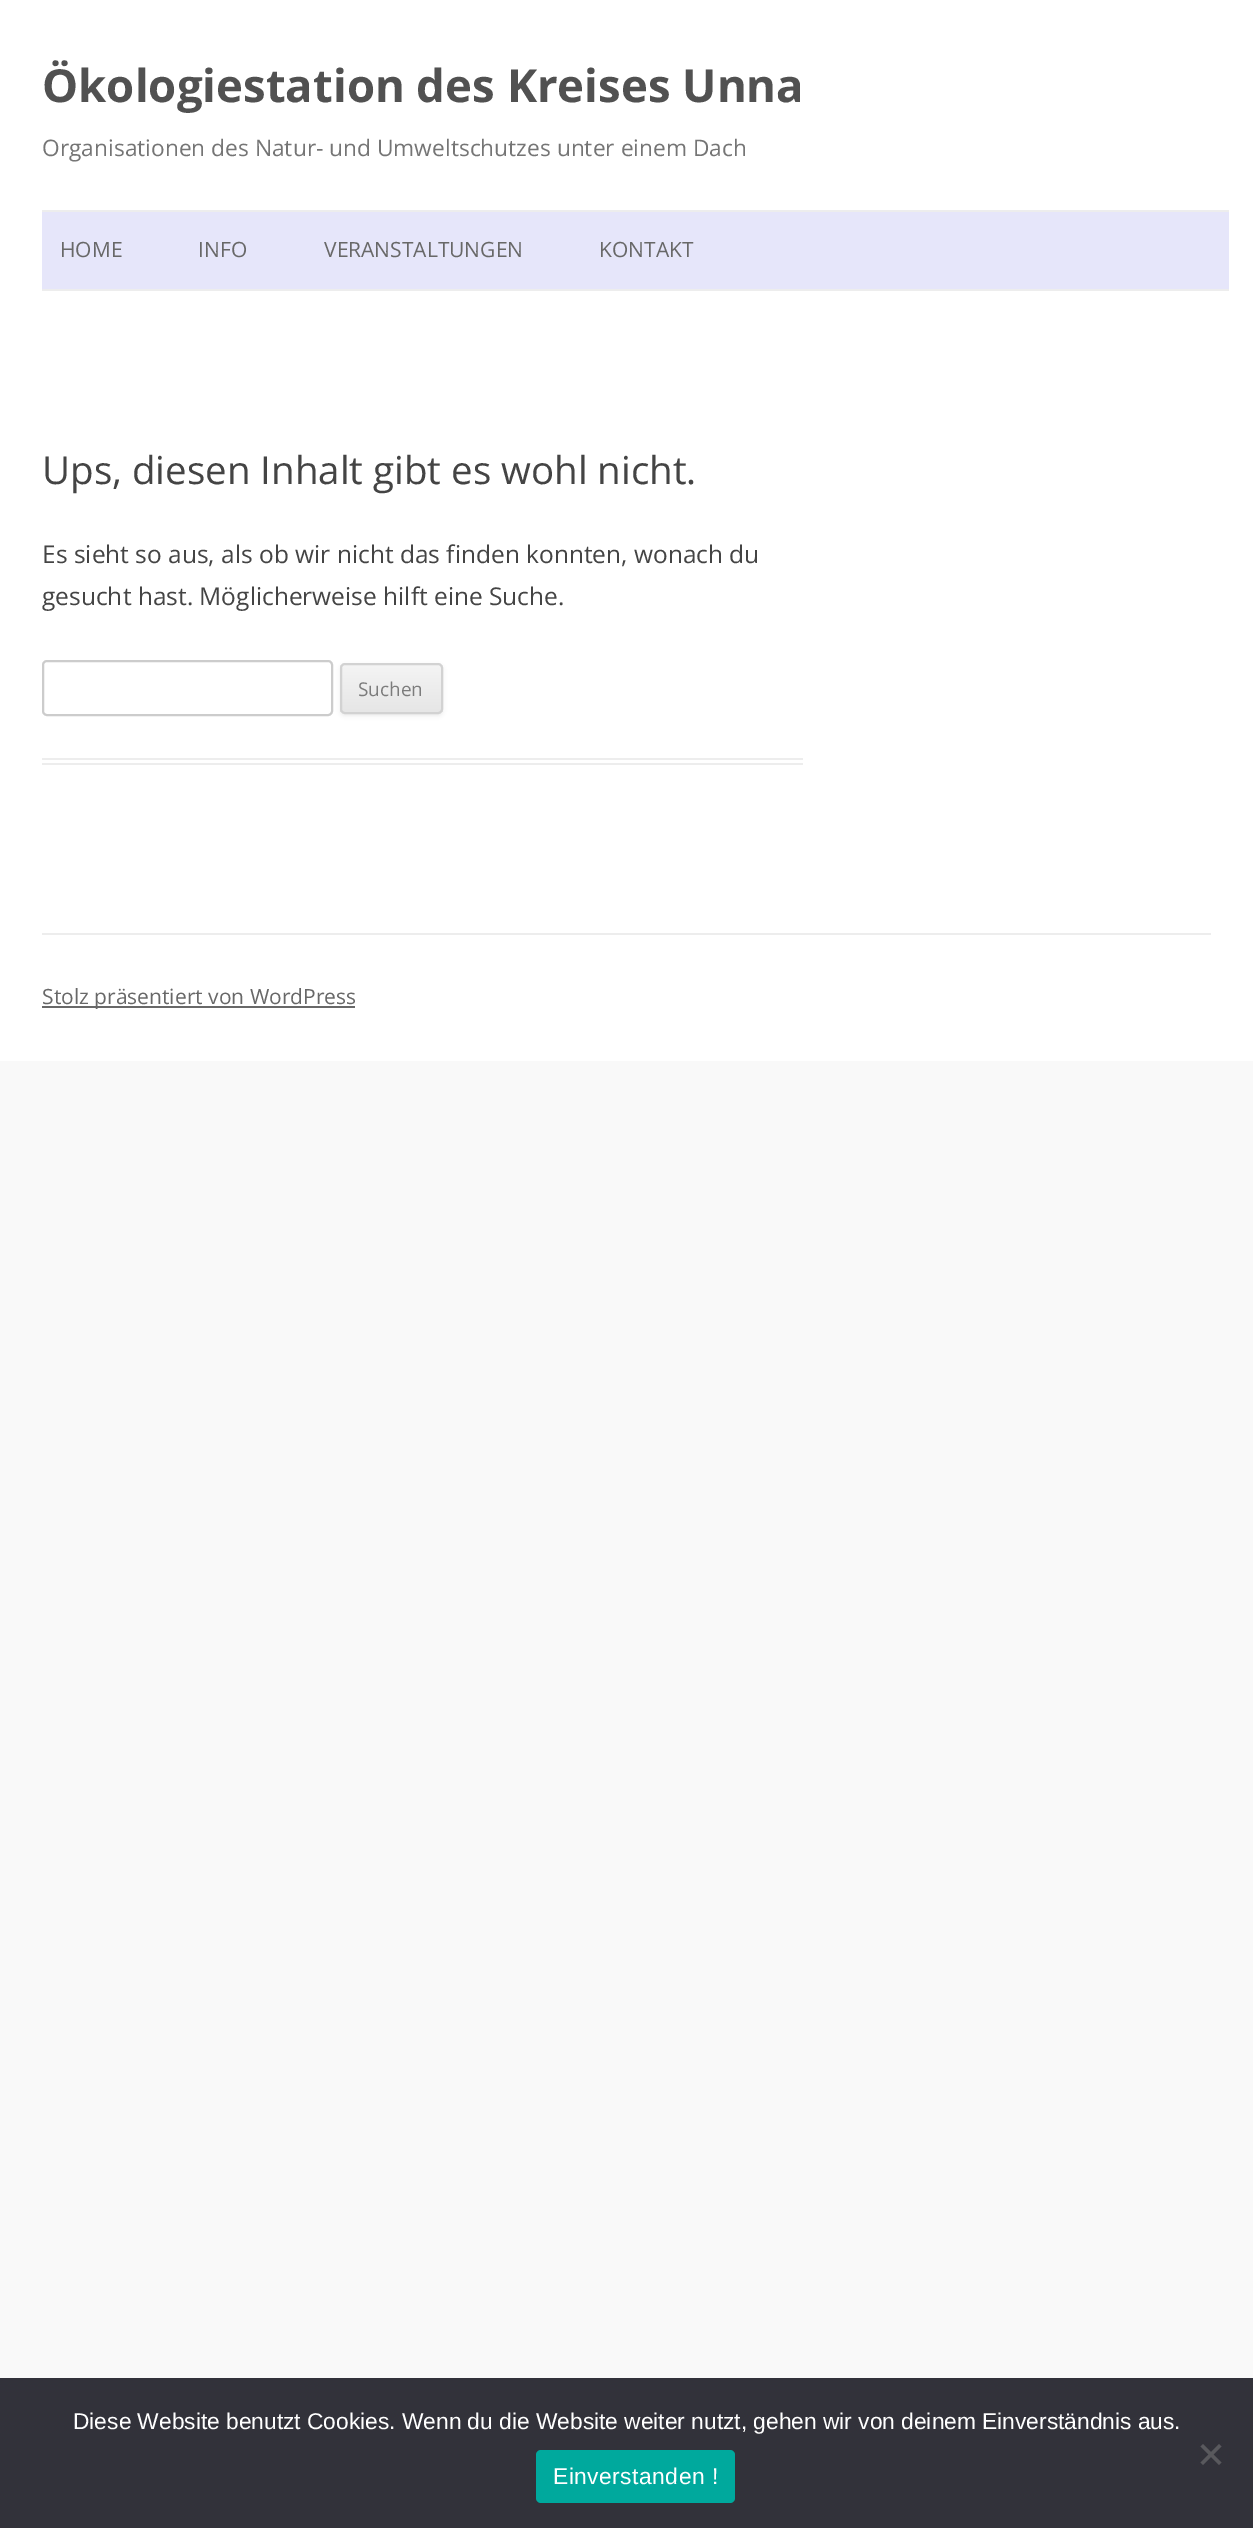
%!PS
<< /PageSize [1253 2528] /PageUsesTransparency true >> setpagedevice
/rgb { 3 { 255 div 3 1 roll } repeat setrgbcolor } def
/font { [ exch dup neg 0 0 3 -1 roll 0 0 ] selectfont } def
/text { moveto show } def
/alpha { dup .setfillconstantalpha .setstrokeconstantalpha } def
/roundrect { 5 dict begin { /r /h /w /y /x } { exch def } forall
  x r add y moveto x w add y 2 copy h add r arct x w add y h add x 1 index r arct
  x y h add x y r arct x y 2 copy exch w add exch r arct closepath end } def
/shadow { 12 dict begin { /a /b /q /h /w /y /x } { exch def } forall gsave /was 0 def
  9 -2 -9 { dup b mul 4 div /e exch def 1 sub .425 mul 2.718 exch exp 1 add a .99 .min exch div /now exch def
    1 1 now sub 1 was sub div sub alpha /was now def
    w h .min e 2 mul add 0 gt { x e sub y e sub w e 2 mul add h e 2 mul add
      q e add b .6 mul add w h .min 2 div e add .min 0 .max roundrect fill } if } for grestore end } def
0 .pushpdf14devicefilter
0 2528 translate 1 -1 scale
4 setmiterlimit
249 249 249 rgb
0 0 1253 2528 rectfill
255 255 255 rgb
0 0 1253 1061 rectfill
230 230 250 rgb
42 212 1187 77 rectfill
237 237 237 rgb
42 210 1187 2 rectfill
42 289 1187 2 rectfill
42 758 761 2 rectfill
42 763 761 2 rectfill
204 204 204 rgb
2 setlinewidth
43 661 289 54 4 roundrect stroke
64 64 64 rgb
340 665 103 51 5 2 0.1 shadow
gsave
340 663 103 51 5 roundrect clip newpath
gsave 340 665 moveto 103 0 rlineto 0 47 rlineto -103 0 rlineto closepath clip newpath
<< /ShadingType 2 /ColorSpace /DeviceRGB /Coords [391 665 391 712] /Extend [true true] /Function << /FunctionType 2 /Domain [0 1] /C0 [0.957 0.957 0.957] /C1 [0.902 0.902 0.902] /N 1 >> >> shfill grestore
grestore
210 210 210 rgb
341 664 101 49 4 roundrect stroke
237 237 237 rgb
42 933 1169 2 rectfill
104 104 104 rgb
42 1006 313 2 rectfill
50 50 58 rgb
0 2378 1253 150 rectfill
89 89 93 rgb
1219 2444 moveto 2.5 2.5 rlineto -18.5 18.5 rlineto -2.5 -2.5 rlineto closepath fill
1200.5 2446.5 moveto 2.5 -2.5 rlineto 18.5 18.5 rlineto -2.5 2.5 rlineto closepath fill
0 169 157 rgb
536 2450 199 53 5 roundrect fill
/OpenSans-Bold 45.5 font
81 81 81 rgb
(Ökologiestation des Kreises Unna) 42 102 text
/OpenSans-Regular 22.75 font
117 117 117 rgb
(Organisationen des Natur- und Umweltschutzes unter einem Dach) 42 156 text
/OpenSans-Regular 21 font
104 104 104 rgb
(HOME) 60 257 text
(INFO) 198 257 text
(VERANSTALTUNGEN) 324 257 text
(KONTAKT) 599 257 text
/OpenSans-Regular 38.5 font
68 68 68 rgb
(Ups, diesen Inhalt gibt es wohl nicht.) 42 484 text
/OpenSans-Regular 24.5 font
(Es sieht so aus, als ob wir nicht das finden konnten, wonach du) 42 563 text
(gesucht hast. Möglicherweise hilft eine Suche.) 42 605 text
/OpenSans-Regular 19 font
124 124 124 rgb
(Suchen) 358 696 text
/OpenSans-Regular 21 font
104 104 104 rgb
(Stolz präsentiert von WordPress) 42 1004 text
/LiberationSans-Regular 22.75 font
255 255 255 rgb
(Diese Website benutzt Cookies. Wenn du die Website weiter nutzt, gehen wir von deinem Einverständnis aus.) 73 2429 text
553 2484 moveto 0.5 0 (Einverstanden !) ashow
.poppdf14devicefilter showpage
